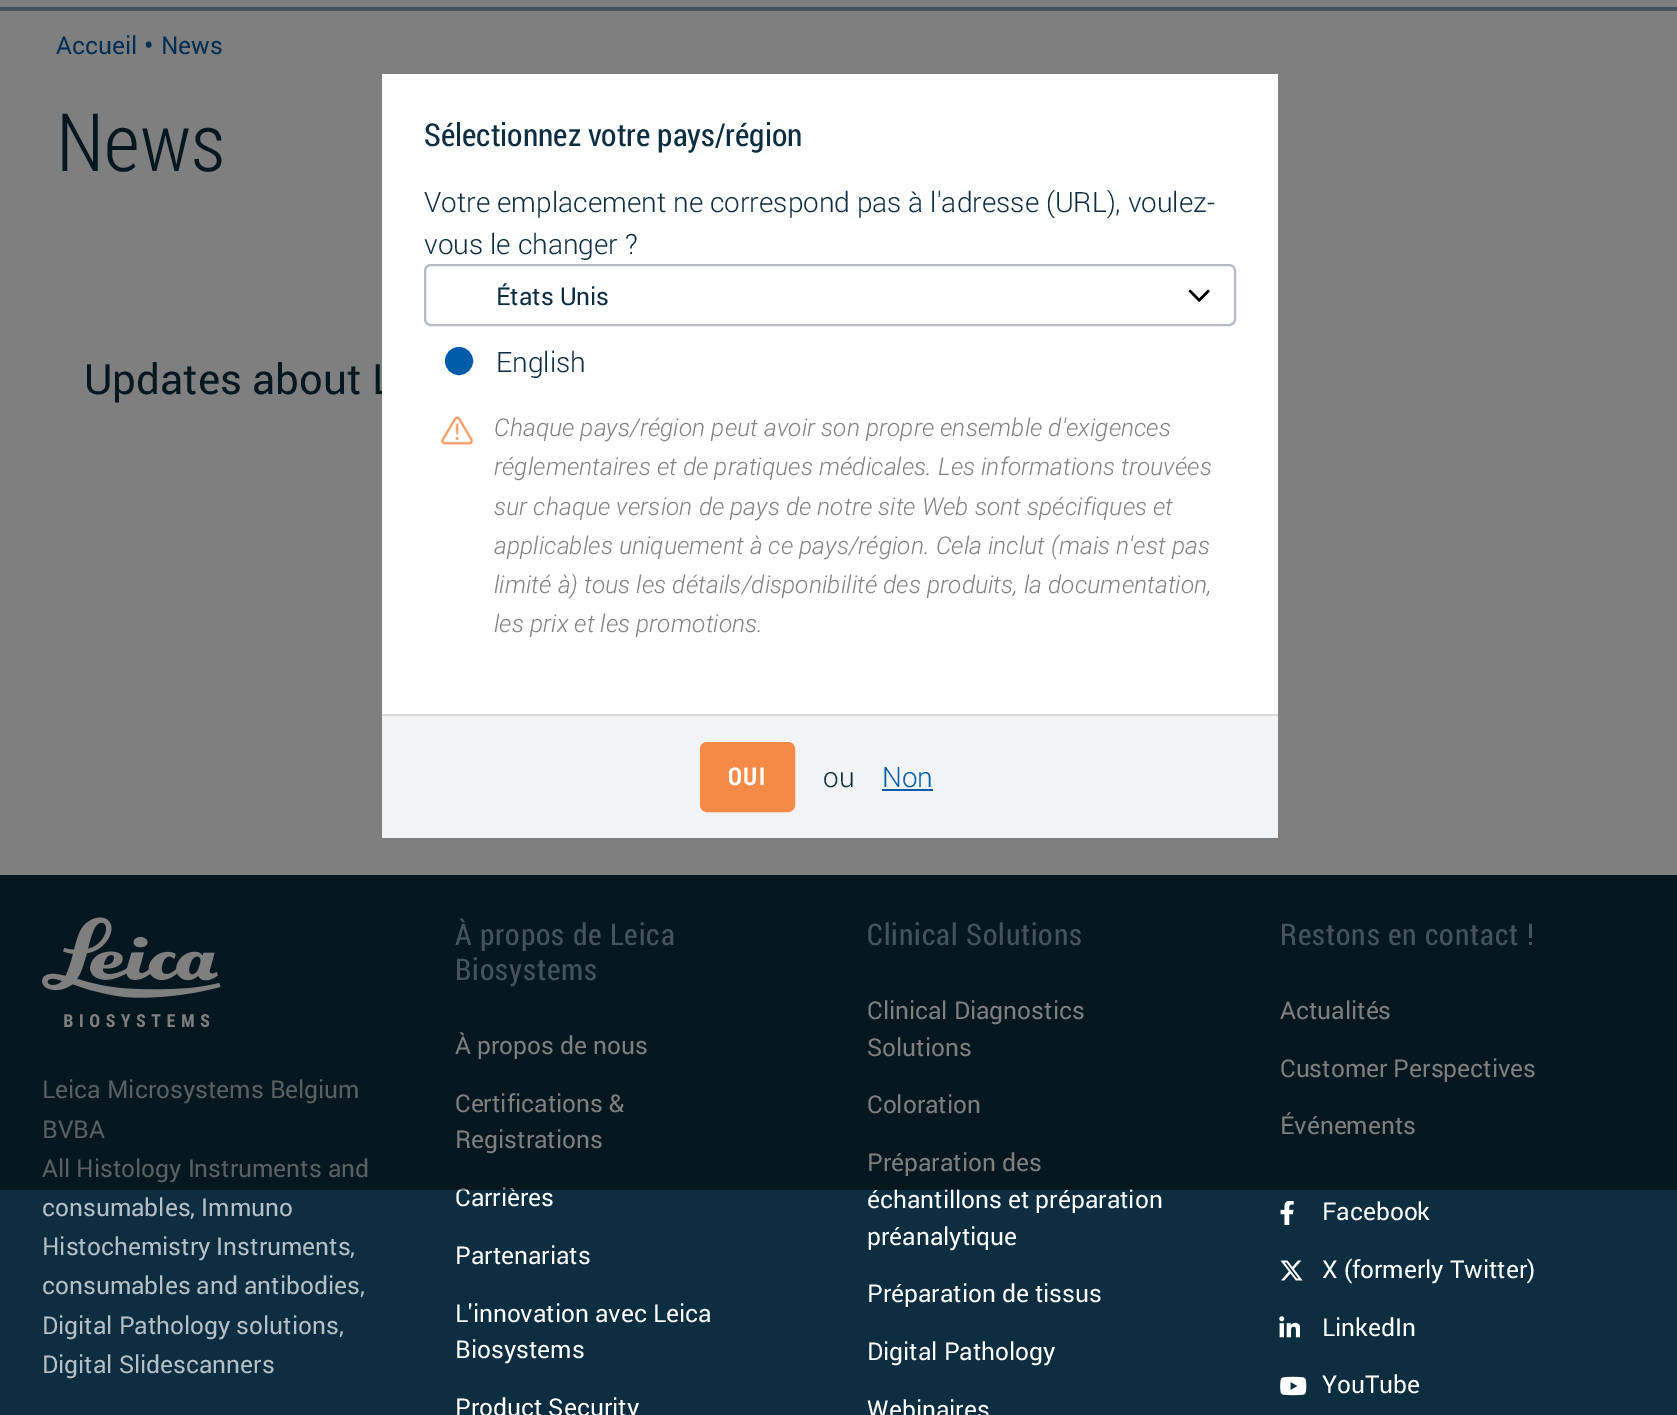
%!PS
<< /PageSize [1677 1415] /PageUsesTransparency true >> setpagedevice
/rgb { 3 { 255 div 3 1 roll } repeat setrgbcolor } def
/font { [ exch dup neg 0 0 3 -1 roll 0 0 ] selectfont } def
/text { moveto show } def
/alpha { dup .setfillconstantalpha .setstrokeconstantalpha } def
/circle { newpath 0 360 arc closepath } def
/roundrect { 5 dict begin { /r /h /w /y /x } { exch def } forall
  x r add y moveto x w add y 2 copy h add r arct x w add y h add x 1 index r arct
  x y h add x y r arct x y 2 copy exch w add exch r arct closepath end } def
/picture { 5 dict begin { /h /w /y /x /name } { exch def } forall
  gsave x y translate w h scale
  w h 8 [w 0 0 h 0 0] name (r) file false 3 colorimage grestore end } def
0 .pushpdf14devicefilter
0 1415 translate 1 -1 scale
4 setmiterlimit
255 255 255 rgb
0 0 1677 1415 rectfill
140 166 188 rgb
0 7 1677 4 rectfill
12 46 64 rgb
0 875 1677 540 rectfill
(img_03.rgb) 42 917 179 111 picture
(img_04.rgb) 1280 1201 14 24 picture
(img_05.rgb) 1280 1260 23 21 picture
(img_06.rgb) 1279 1316 21 22 picture
(img_07.rgb) 1280 1376 27 20 picture
/Roboto-Regular 24.5 font
0 92 169 rgb
(Accueil) 56 54 text
/Roboto-Regular 28 font
(•) 144 55 text
/Roboto-Regular 24.5 font
(News) 161 54 text
/RobotoCondensed-Light 80.5 font
12 46 64 rgb
(News) 56 171 text
/Roboto-Regular 42 font
(Updates about L) 84 394 text
/Roboto-Regular 24.5 font
182 192 198 rgb
(Leica Microsystems Belgium) 42 1098 text
(BVBA) 42 1138 text
(All Histology Instruments and) 42 1177 text
(consumables, Immuno) 42 1216 text
(Histochemistry Instruments,) 42 1255 text
(consumables and antibodies,) 42 1294 text
(Digital Pathology solutions,) 42 1334 text
(Digital Slidescanners) 42 1373 text
/RobotoCondensed-Regular 29.75 font
140 166 188 rgb
455 945 moveto 0.9 0 (À propos de Leica) ashow
455 980 moveto 0.9 0 (Biosystems) ashow
/Roboto-Regular 24.5 font
255 255 255 rgb
(À propos de nous) 455 1054 text
(Certifications &) 455 1112 text
(Registrations) 455 1148 text
(Carrières) 455 1206 text
(Partenariats) 455 1264 text
(L'innovation avec Leica) 455 1322 text
(Biosystems) 455 1358 text
(Product Security) 455 1416 text
/RobotoCondensed-Regular 29.75 font
140 166 188 rgb
867 945 moveto 0.9 0 (Clinical Solutions) ashow
/Roboto-Regular 24.5 font
255 255 255 rgb
(Clinical Diagnostics) 867 1019 text
(Solutions) 867 1056 text
(Coloration) 867 1113 text
(Préparation des) 867 1171 text
(échantillons et préparation) 867 1208 text
(préanalytique) 867 1245 text
(Préparation de tissus) 867 1302 text
(Digital Pathology) 867 1360 text
(Webinaires) 867 1418 text
/RobotoCondensed-Regular 29.75 font
140 166 188 rgb
1280 945 moveto 0.9 0 (Restons en contact !) ashow
/Roboto-Regular 24.5 font
255 255 255 rgb
(Actualités) 1280 1019 text
(Customer Perspectives) 1280 1077 text
(Événements) 1280 1134 text
0.5 alpha
0 0 0 rgb
0 0 1677 1190 rectfill
1 alpha
255 255 255 rgb
382 74 896 640 rectfill
0 92 169 rgb
459 361 13 circle gsave fill grestore
2 setlinewidth
stroke
/Roboto-Light 28 font
12 46 64 rgb
(English) 496 372 text
242 243 245 rgb
382 716 896 122 rectfill
0 92 169 rgb
(Non) 882 787 text
882 789 51 2 rectfill
12 46 64 rgb
(ou) 823 787 text
245 138 70 rgb
701 743 93 68 6 roundrect gsave fill grestore
stroke
/RobotoCondensed-Bold 24.5 font
255 255 255 rgb
728 785 moveto 1.5 0 (OUI) ashow
216 216 216 rgb
382 714 896 2 rectfill
/Roboto-LightItalic 24.5 font
128 130 133 rgb
(les prix et les promotions.) 494 632 text
(limité à\) tous les détails/disponibilité des produits, la documentation,) 494 593 text
(applicables uniquement à ce pays/région. Cela inclut \(mais n'est pas) 494 554 text
(sur chaque version de pays de notre site Web sont spécifiques et) 494 515 text
(réglementaires et de pratiques médicales. Les informations trouvées) 494 475 text
(Chaque pays/région peut avoir son propre ensemble d'exigences) 494 436 text
(img_02.rgb) 441 416 33 29 picture
(img_01.rgb) 1188 289 22 13 picture
183 186 195 rgb
425 265 810 60 6 roundrect stroke
/Roboto-Regular 24.5 font
12 46 64 rgb
(États Unis) 496 305 text
/Roboto-Light 28 font
(vous le changer ?) 424 254 text
(Votre emplacement ne correspond pas à l'adresse \(URL\), voulez-) 424 212 text
/RobotoCondensed-Regular 31.5 font
(Sélectionnez votre pays/région) 424 146 text
/Roboto-Regular 24.5 font
255 255 255 rgb
(Facebook) 1322 1220 text
(X \(formerly Twitter\)) 1322 1278 text
(LinkedIn) 1322 1336 text
(YouTube) 1322 1393 text
.poppdf14devicefilter showpage
